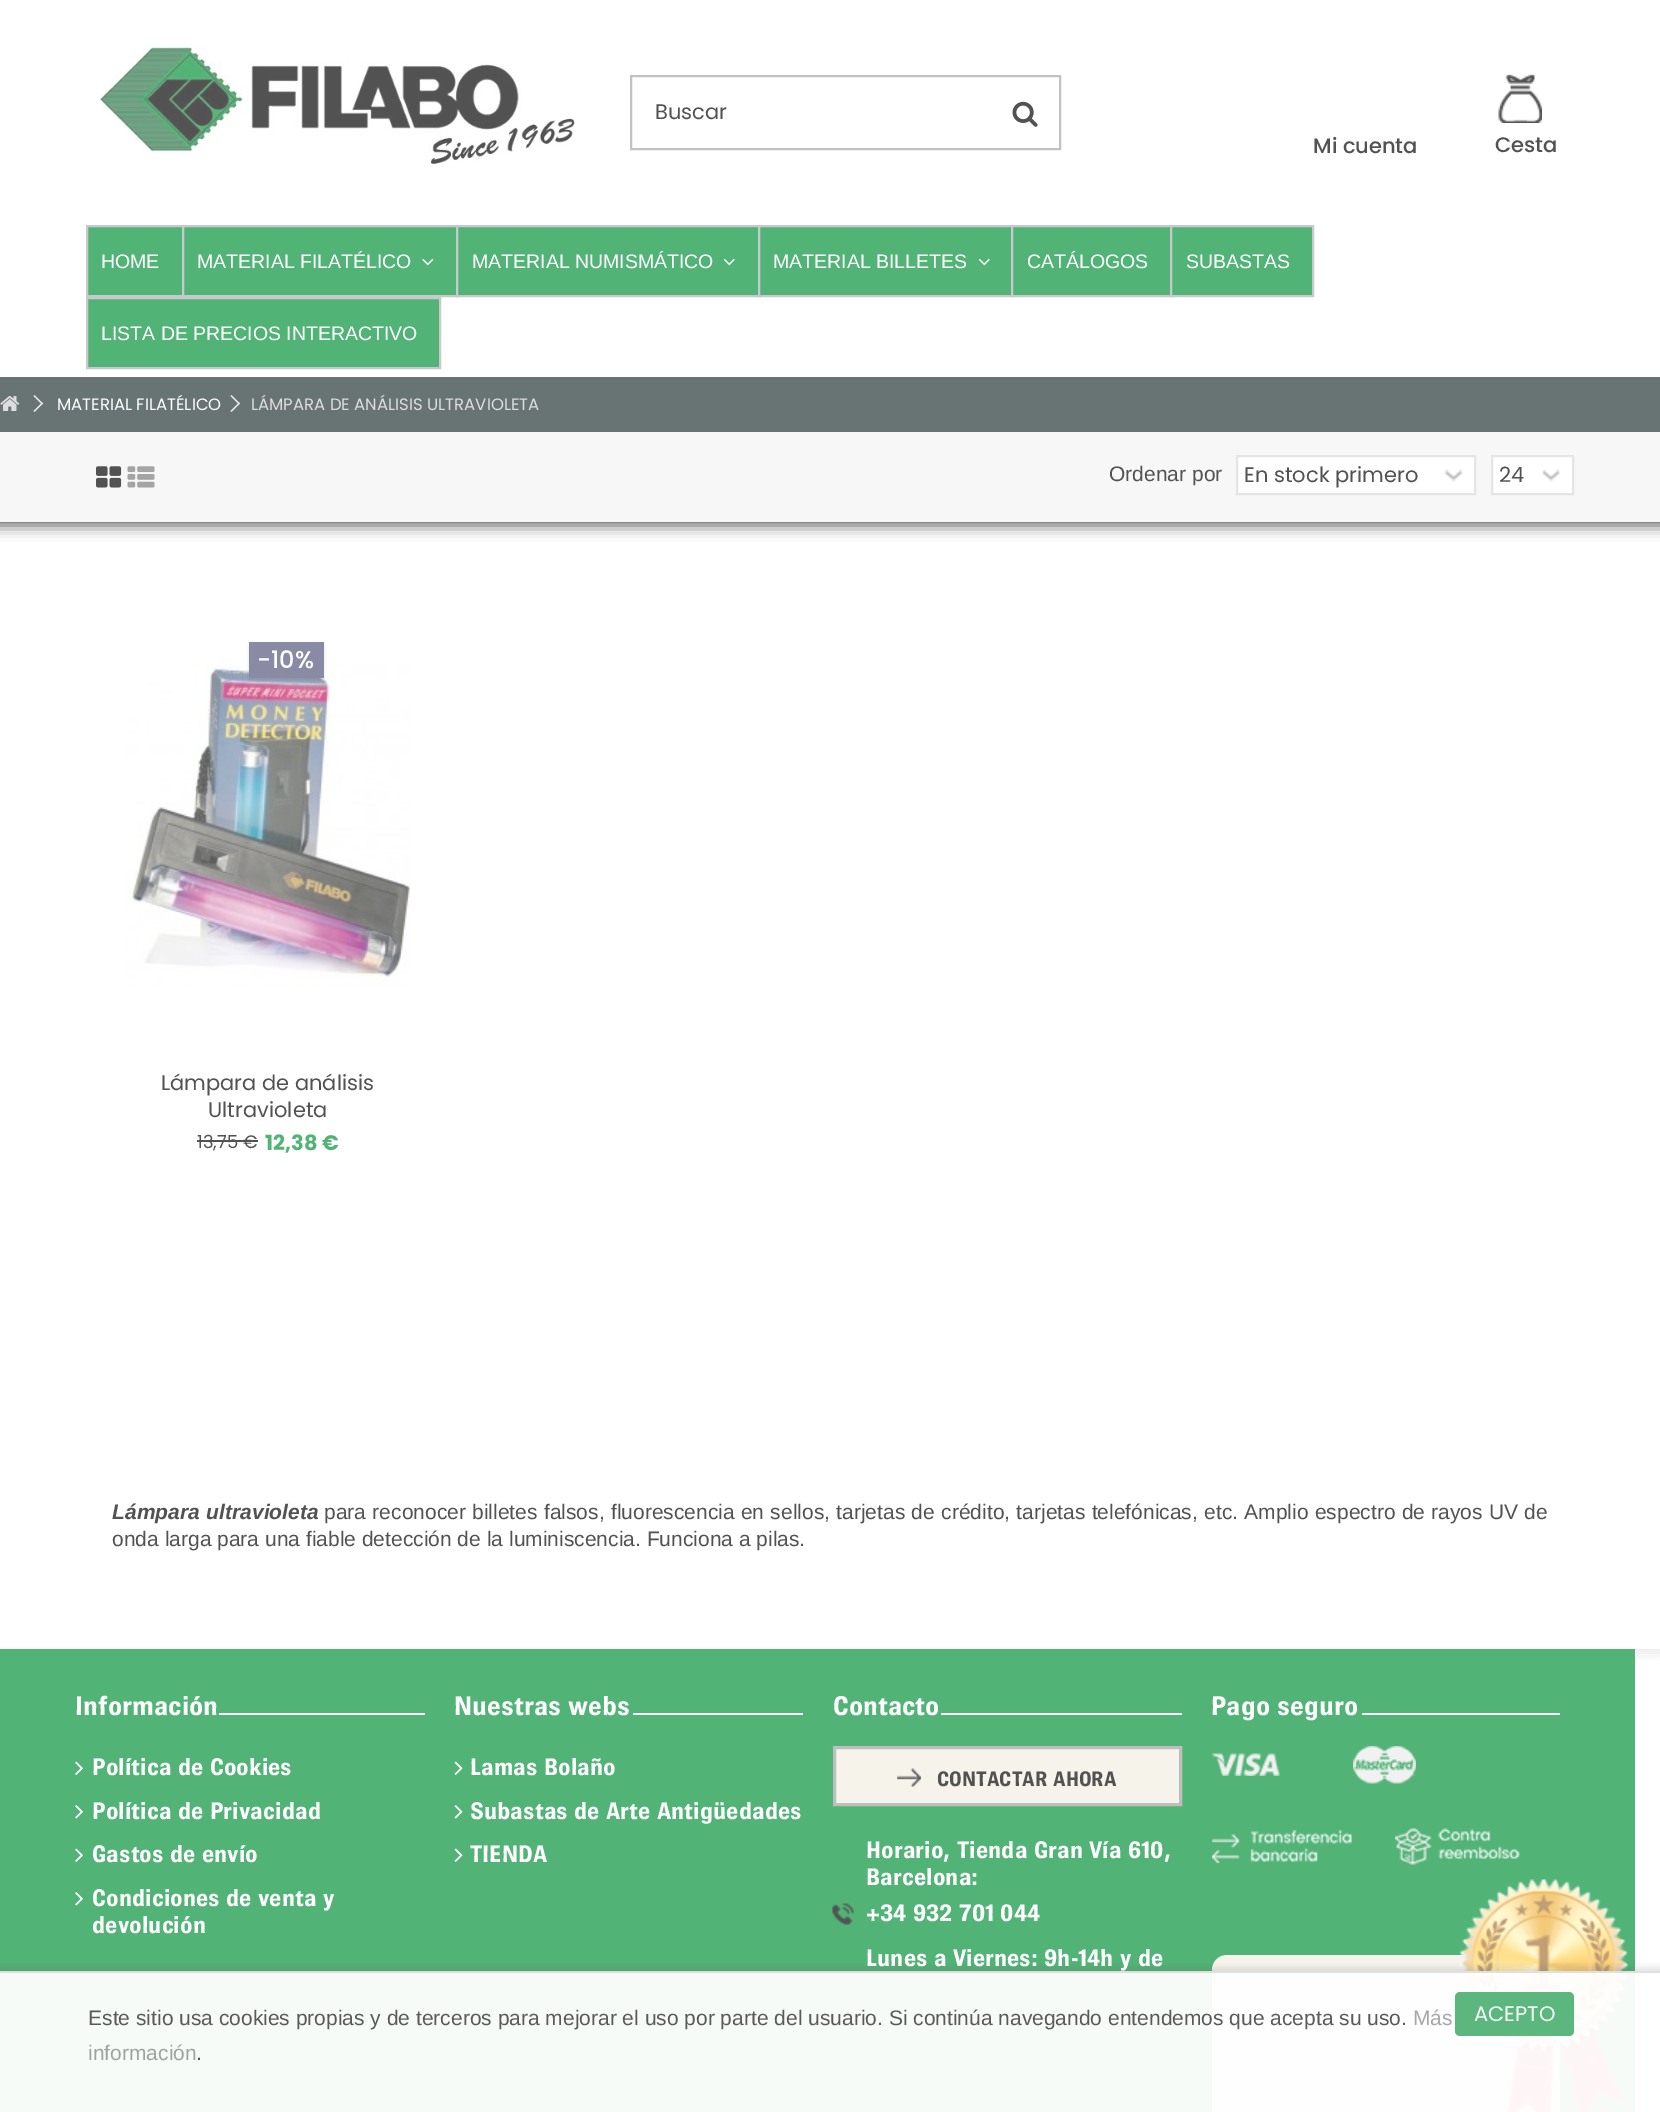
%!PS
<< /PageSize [1660 2112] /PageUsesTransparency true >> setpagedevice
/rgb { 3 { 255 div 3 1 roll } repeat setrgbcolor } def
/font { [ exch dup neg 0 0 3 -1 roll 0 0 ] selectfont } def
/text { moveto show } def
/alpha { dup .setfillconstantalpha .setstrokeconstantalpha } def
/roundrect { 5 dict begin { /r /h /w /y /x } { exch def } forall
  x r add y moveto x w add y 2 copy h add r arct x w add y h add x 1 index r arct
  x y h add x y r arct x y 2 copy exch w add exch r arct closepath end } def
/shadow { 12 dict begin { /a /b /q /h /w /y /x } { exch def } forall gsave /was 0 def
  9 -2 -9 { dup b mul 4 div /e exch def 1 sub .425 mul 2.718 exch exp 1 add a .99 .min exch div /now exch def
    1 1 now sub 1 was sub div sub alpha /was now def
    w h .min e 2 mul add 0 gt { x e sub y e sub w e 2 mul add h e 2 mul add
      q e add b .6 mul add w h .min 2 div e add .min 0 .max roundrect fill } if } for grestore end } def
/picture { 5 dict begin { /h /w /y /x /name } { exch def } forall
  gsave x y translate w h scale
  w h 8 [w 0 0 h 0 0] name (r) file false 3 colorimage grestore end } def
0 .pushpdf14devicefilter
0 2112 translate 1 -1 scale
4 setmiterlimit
255 255 255 rgb
0 0 1660 2112 rectfill
gsave
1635 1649 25 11 rectclip
82 82 82 rgb
0 3 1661 1649 0 7.5 0.15 shadow
grestore
(img_01.rgb) 100 47 475 117 picture
194 194 194 rgb
2 setlinewidth
631 76 429 73 rectstroke
(img_02.rgb) 1012 101 26 26 picture
(img_03.rgb) 1498 74 44 49 picture
82 179 118 rgb
88 227 94 68 rectfill
201 201 205 rgb
87 226 97 70 rectstroke
82 179 118 rgb
184 227 272 68 rectfill
201 201 205 rgb
183 226 275 70 rectstroke
(img_04.rgb) 422 258 12 8 picture
82 179 118 rgb
458 227 300 68 rectfill
201 201 205 rgb
457 226 303 70 rectstroke
(img_05.rgb) 723 258 12 8 picture
82 179 118 rgb
760 227 251 68 rectfill
201 201 205 rgb
759 226 254 70 rectstroke
(img_05.rgb) 978 258 12 8 picture
82 179 118 rgb
1013 227 157 68 rectfill
201 201 205 rgb
1012 226 160 70 rectstroke
82 179 118 rgb
1171 226 moveto 142 0 rlineto 0 70 rlineto -142 0 rlineto closepath gsave fill grestore
201 201 205 rgb
stroke
82 179 118 rgb
87 298 moveto 353 0 rlineto 0 70 rlineto -353 0 rlineto closepath gsave fill grestore
201 201 205 rgb
stroke
104 115 116 rgb
0 377 1660 55 rectfill
gsave
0 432 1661 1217 rectclip
82 82 82 rgb
-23 420 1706 105 0 7.5 1 shadow
grestore
(img_06.rgb) 0 396 20 15 picture
232 232 232 rgb
34.5 395 moveto 8.5 8.5 rlineto -1 1 rlineto -8.5 -8.5 rlineto closepath fill
42 402.5 moveto 1 1 rlineto -8.5 8.5 rlineto -1 -1 rlineto closepath fill
231.5 395 moveto 8.5 8.5 rlineto -1 1 rlineto -8.5 -8.5 rlineto closepath fill
239 402.5 moveto 1 1 rlineto -8.5 8.5 rlineto -1 -1 rlineto closepath fill
255 255 255 rgb
0 1648 1660 1 rectfill
247 247 247 rgb
0 432 1660 90 rectfill
(img_07.rgb) 96 466 26 22 picture
(img_08.rgb) 127 466 28 22 picture
255 255 255 rgb
1238 457 236 36 rectfill
(img_09.rgb) 1444 469 19 13 picture
229 229 229 rgb
1237 456 238 38 rectstroke
255 255 255 rgb
1493 457 79 36 rectfill
(img_10.rgb) 1542 469 18 13 picture
229 229 229 rgb
1492 456 81 38 rectstroke
(img_11.rgb) 127 664 284 321 picture
82 82 82 rgb
249 644 75 36 0 1.5 0.15 shadow
137 139 164 rgb
249 642 75 36 rectfill
82 82 82 rgb
197 1140 61 2 rectfill
82 179 118 rgb
0 1649 1635 463 rectfill
255 255 255 rgb
219 1713 206 2 rectfill
(img_12.rgb) 75 1761 8 14 picture
(img_13.rgb) 75 1805 8 14 picture
(img_12.rgb) 75 1848 8 14 picture
(img_13.rgb) 75 1892 8 14 picture
633 1713 170 2 rectfill
(img_14.rgb) 454 1761 9 14 picture
(img_15.rgb) 454 1805 9 14 picture
(img_14.rgb) 454 1848 9 14 picture
941 1713 241 2 rectfill
246 243 235 rgb
834.5 1747.5 moveto 346 0 rlineto 0 57 rlineto -346 0 rlineto closepath gsave fill grestore
190 190 190 rgb
3 setlinewidth
stroke
(img_16.rgb) 897 1768 24 19 picture
(img_17.rgb) 832 1903 22 22 picture
255 255 255 rgb
1362 1713 198 2 rectfill
(img_18.rgb) 1212 1753 68 23 picture
(img_19.rgb) 1353 1746 63 38 picture
(img_20.rgb) 1212 1830 140 33 picture
(img_21.rgb) 1395 1828 125 37 picture
246 243 235 rgb
1212 1955 348 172 15 roundrect fill
(img_22.rgb) 1459 1879 169 233 picture
gsave
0 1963 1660 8 rectclip
82 82 82 rgb
0 1968 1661 141 0 4 0.19 shadow
grestore
0.95 alpha
255 255 255 rgb
0 1971 1635 141 rectfill
222 222 222 rgb
0 1971 1660 2 rectfill
82 179 118 rgb
1455 1992 119 44 5 roundrect fill
/Poppins-Regular 21 font
1 alpha
82 82 82 rgb
(Buscar) 655 119 text
/Poppins-Medium 21 font
(Mi cuenta) 1313 153 text
(Cesta) 1495 152 text
/LiberationSans-Regular 19.5 font
255 255 255 rgb
(HOME) 101 268 text
(MATERIAL FILATÉLICO) 197 268 text
(MATERIAL NUMISMÁTICO) 472 268 text
(MATERIAL BILLETES) 773 268 text
(CATÁLOGOS) 1027 268 text
(SUBASTAS) 1186 268 text
(LISTA DE PRECIOS INTERACTIVO) 101 340 text
/Poppins-Regular 16.5 font
(MATERIAL FILATÉLICO) 57 410 text
220 222 222 rgb
(LÁMPARA DE ANÁLISIS ULTRAVIOLETA) 251 410 text
/LiberationSans-Regular 21 font
82 82 82 rgb
(Ordenar por) 1109 481 text
/Poppins-Regular 21 font
(En stock primero) 1244 482 text
(24) 1499 482 text
/Poppins-Medium 24 font
255 255 255 rgb
(-10%) 257 668 text
/Poppins-Regular 21 font
82 82 82 rgb
(Lámpara de análisis) 161 1090 text
(Ultravioleta) 208 1117 text
/Poppins-Regular 18 font
(13,75 €) 197 1148 text
/Poppins-Bold 21 font
82 179 118 rgb
(12,38 €) 265 1150 text
/LiberationSans-BoldItalic 21 font
82 82 82 rgb
112 1519 moveto 1 0 32 (Lámpara ultravioleta) widthshow
/LiberationSans-Regular 21 font
324 1519 moveto 0.5 0 32 (para reconocer billetes falsos, fluorescencia en sellos, tarjetas de crédito, tarjetas telefónicas, etc. Amplio espectro de rayos UV de) widthshow
(onda larga para una fiable detección de la luminiscencia. Funciona a pilas.) 112 1546 text
/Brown-Bold 27 font
255 255 255 rgb
(Información) 75 1715 text
/Brown-Bold 24 font
(Política de Cookies) 92 1775 text
(Política de Privacidad) 92 1819 text
(Gastos de envío) 92 1862 text
(Condiciones de venta y) 92 1906 text
(devolución) 92 1933 text
/Brown-Bold 27 font
(Nuestras webs) 454 1715 text
/Brown-Bold 24 font
(Lamas Bolaño) 470 1775 text
(Subastas de Arte Antigüedades) 470 1819 text
(TIENDA) 470 1862 text
/Brown-Bold 27 font
(Contacto) 833 1715 text
/Brown-Bold 21 font
82 82 82 rgb
(CONTACTAR AHORA) 937 1786 text
/Brown-Bold 24 font
255 255 255 rgb
(Horario, Tienda Gran Vía 610,) 866 1858 text
(Barcelona:) 866 1885 text
(+34 932 701 044) 866 1921 text
(Lunes a Viernes: 9h-14h y de) 866 1966 text
/Brown-Bold 27 font
(Pago seguro) 1211 1715 text
/LiberationSans-Regular 21 font
90 90 90 rgb
(Este sitio usa cookies propias y de terceros para mejorar el uso por parte del usuario. Si continúa navegando entendemos que acepta su uso.) 88 2025 text
167 167 167 rgb
(Más) 1413 2025 text
158 163 160 rgb
(información) 88 2060 text
82 82 82 rgb
(.) 196 2060 text
/Poppins-Regular 21 font
247 252 248 rgb
(ACEPTO) 1474 2021 text
.poppdf14devicefilter showpage
